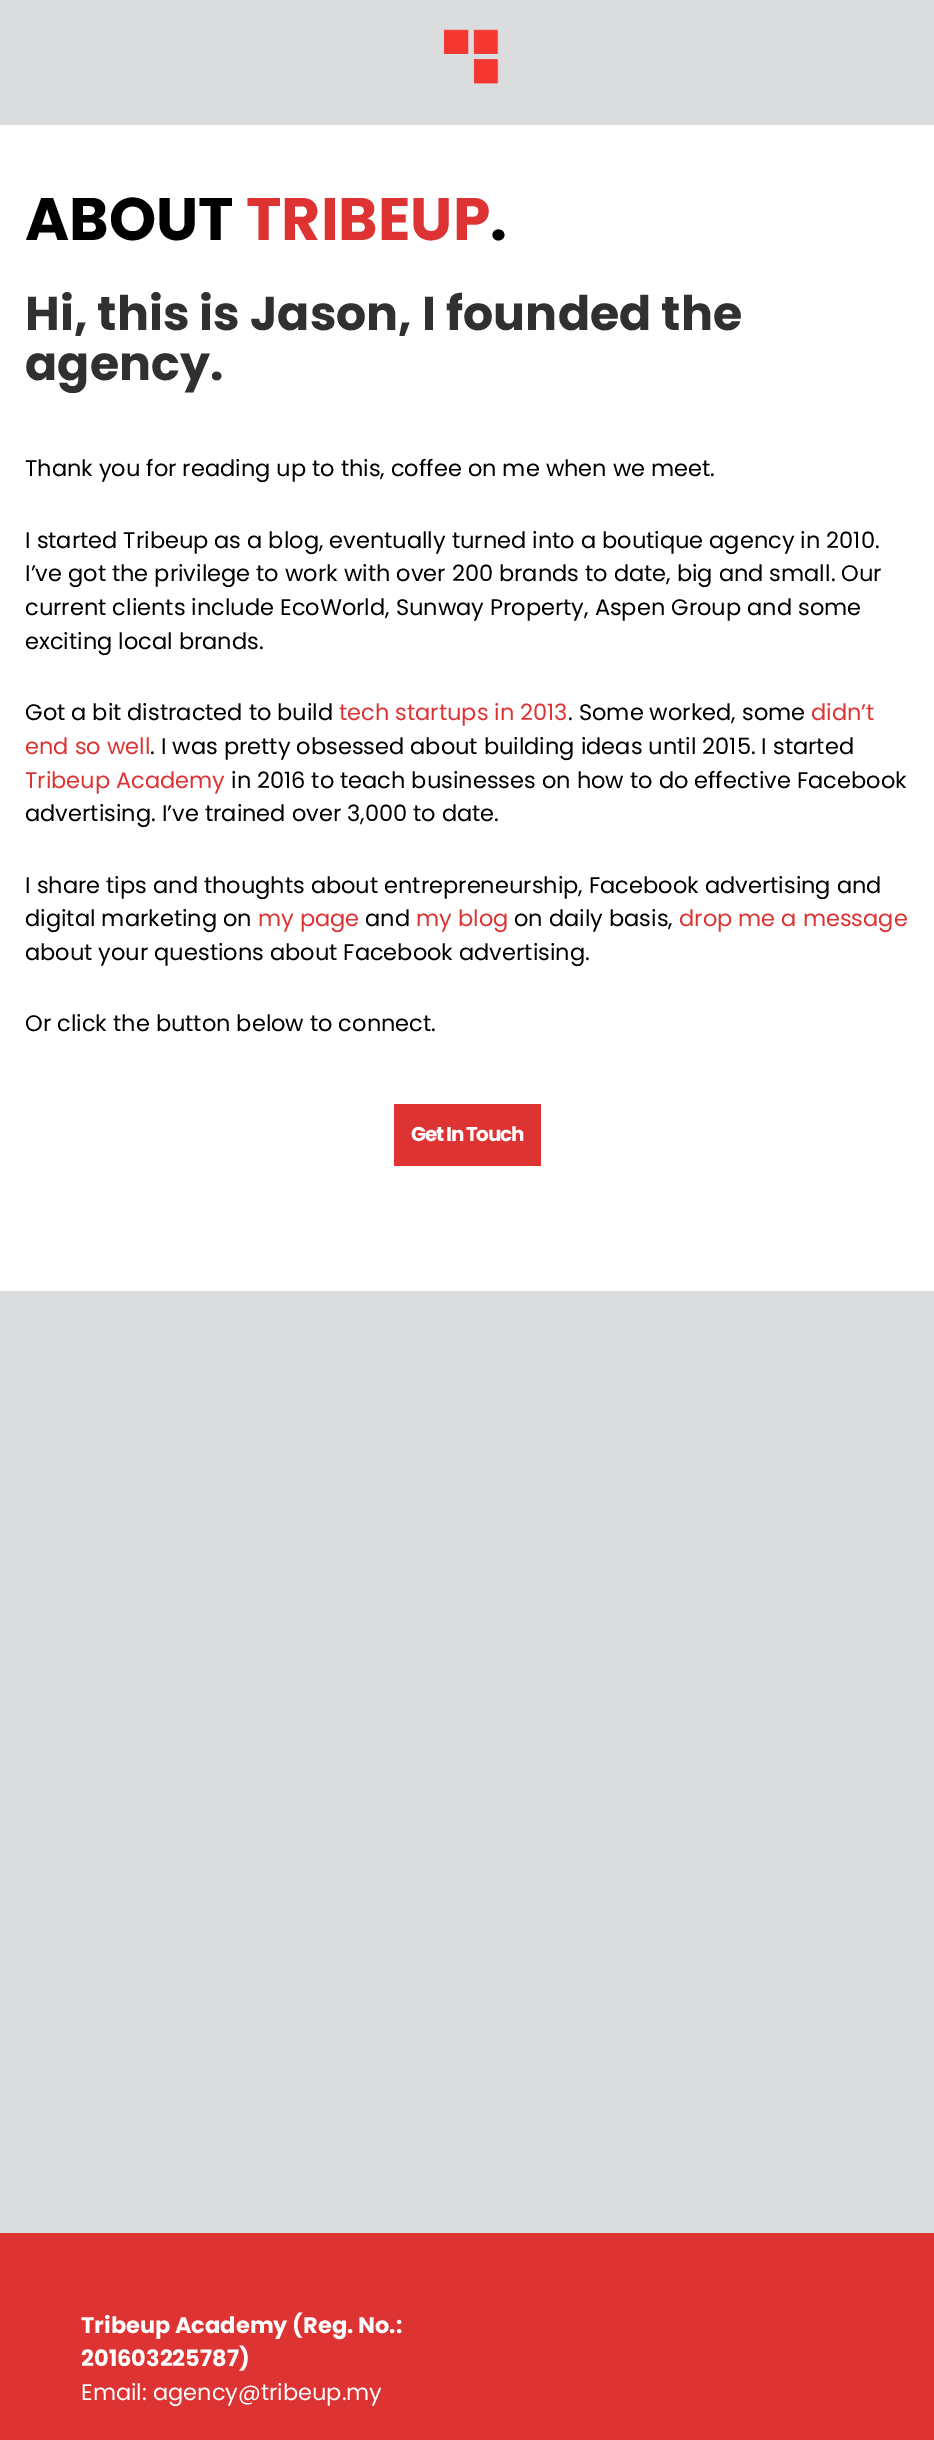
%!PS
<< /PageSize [934 2440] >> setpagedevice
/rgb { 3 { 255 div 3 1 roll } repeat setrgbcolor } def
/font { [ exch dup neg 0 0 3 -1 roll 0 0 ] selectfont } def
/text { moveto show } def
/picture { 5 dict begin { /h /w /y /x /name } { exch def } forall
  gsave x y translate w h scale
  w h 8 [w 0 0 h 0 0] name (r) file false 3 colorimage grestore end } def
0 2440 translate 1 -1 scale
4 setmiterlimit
219 220 222 rgb
0 0 934 2440 rectfill
(img_01.rgb) 443 29 56 55 picture
255 255 255 rgb
0 125 934 1166 rectfill
221 51 51 rgb
394 1104 147 62 rectfill
0 2233 934 207 rectfill
/Poppins-Bold 60 font
0 0 0 rgb
(ABOUT) 25 240 text
221 51 51 rgb
(TRIBEUP) 246 240 text
0 0 0 rgb
(.) 490 240 text
/Poppins-Bold 47.5 font
48 48 48 rgb
(Hi, this is Jason, I founded the) 25 330 text
(agency.) 25 380 text
/Poppins-Regular 22.5 font
0 0 0 rgb
(Thank you for reading up to this, coffee on me when we meet.) 25 476 text
(I started Tribeup as a blog, eventually turned into a boutique agency in 2010.) 25 548 text
(I’ve got the privilege to work with over 200 brands to date, big and small. Our) 25 581 text
(current clients include EcoWorld, Sunway Property, Aspen Group and some) 25 615 text
(exciting local brands.) 25 649 text
(Got a bit distracted to build) 25 720 text
221 51 51 rgb
(tech startups in 2013) 339 720 text
0 0 0 rgb
(. Some worked, some) 568 720 text
221 51 51 rgb
(didn’t) 811 720 text
(end so well) 25 754 text
0 0 0 rgb
(. I was pretty obsessed about building ideas until 2015. I started) 150 754 text
221 51 51 rgb
(Tribeup Academy) 25 788 text
0 0 0 rgb
(in 2016 to teach businesses on how to do effective Facebook) 231 788 text
(advertising. I’ve trained over 3,000 to date.) 25 821 text
(I share tips and thoughts about entrepreneurship, Facebook advertising and) 25 893 text
(digital marketing on) 25 926 text
221 51 51 rgb
(my page) 258 926 text
0 0 0 rgb
(and) 365 926 text
221 51 51 rgb
(my blog) 416 926 text
0 0 0 rgb
(on daily basis,) 514 926 text
221 51 51 rgb
(drop me a message) 679 926 text
0 0 0 rgb
(about your questions about Facebook advertising.) 25 960 text
(Or click the button below to connect.) 25 1031 text
/Poppins-Bold 20 font
255 255 255 rgb
411 1141 moveto -1.25 0 (Get In Touch) ashow
/Poppins-Bold 22.5 font
(Tribeup Academy \(Reg. No.:) 81 2333 text
(201603225787\)) 81 2366 text
/Poppins-Regular 22.5 font
(Email: agency@tribeup.my) 81 2400 text
showpage
